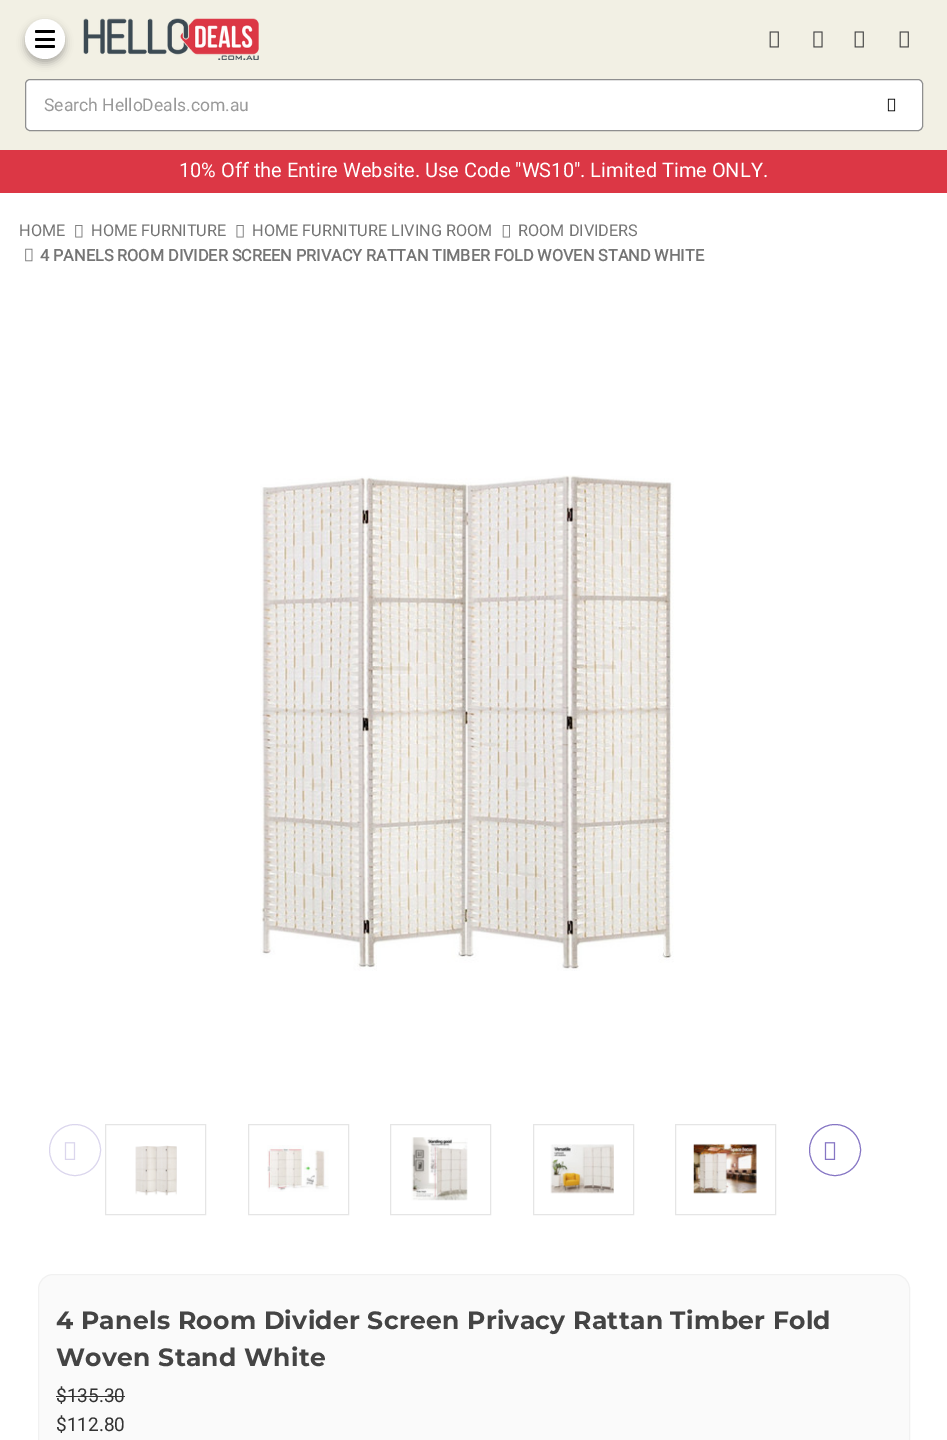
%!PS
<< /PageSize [947 1440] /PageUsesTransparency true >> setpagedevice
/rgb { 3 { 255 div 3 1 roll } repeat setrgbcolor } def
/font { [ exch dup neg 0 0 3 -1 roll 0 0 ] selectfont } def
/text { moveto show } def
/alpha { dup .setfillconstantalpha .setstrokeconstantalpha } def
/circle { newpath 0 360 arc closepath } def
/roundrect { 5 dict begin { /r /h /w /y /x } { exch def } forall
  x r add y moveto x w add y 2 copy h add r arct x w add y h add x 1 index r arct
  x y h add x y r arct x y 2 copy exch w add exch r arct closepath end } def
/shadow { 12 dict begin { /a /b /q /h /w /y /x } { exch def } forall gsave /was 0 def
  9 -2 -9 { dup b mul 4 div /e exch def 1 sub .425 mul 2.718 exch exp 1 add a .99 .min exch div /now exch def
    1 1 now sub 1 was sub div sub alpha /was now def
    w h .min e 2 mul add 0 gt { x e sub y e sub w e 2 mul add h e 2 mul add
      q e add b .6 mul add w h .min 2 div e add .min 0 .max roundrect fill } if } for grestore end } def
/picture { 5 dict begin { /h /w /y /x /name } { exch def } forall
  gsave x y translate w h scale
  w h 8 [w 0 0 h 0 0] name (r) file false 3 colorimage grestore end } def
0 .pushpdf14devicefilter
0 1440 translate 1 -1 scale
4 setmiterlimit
255 255 255 rgb
0 0 947 1440 rectfill
242 240 228 rgb
0 0 947 150 rectfill
0 0 0 rgb
25 23 40 40 20 4 0.29 shadow
255 255 255 rgb
45 39 20 circle fill
0 0 0 rgb
35 38 20 3 1.5 roundrect fill
35 30 20 3 1.5 roundrect fill
35 45 20 3 1.5 roundrect fill
(img_01.rgb) 83 18 176 42 picture
(img_02.rgb) 769 31 10 17 picture
(img_03.rgb) 813 31 10 17 picture
(img_02.rgb) 854 31 10 17 picture
(img_02.rgb) 899 31 10 17 picture
255 255 255 rgb
25.5 79.5 897 51 4.5 roundrect gsave fill grestore
143 143 143 rgb
stroke
(img_04.rgb) 887 98 9 14 picture
220 55 69 rgb
0 150 947 43 rectfill
(img_05.rgb) 75 225 8 13 picture
(img_06.rgb) 236 225 8 13 picture
(img_07.rgb) 502 225 8 13 picture
(img_08.rgb) 25 248 8 14 picture
(img_09.rgb) 260 475 414 496 picture
219 214 237 rgb
75 1150 25.5 circle stroke
(img_10.rgb) 64 1142 12 18 picture
229 229 229 rgb
105.5 1124.5 100 90 rectstroke
(img_11.rgb) 135 1145 42 51 picture
248.5 1124.5 100 90 rectstroke
(img_12.rgb) 267 1145 62 47 picture
390.5 1124.5 100 90 rectstroke
(img_13.rgb) 411 1137 57 64 picture
533.5 1124.5 100 90 rectstroke
(img_14.rgb) 550 1144 64 50 picture
675.5 1124.5 100 90 rectstroke
(img_15.rgb) 693 1143 64 51 picture
134 118 196 rgb
835 1150 25.5 circle stroke
(img_16.rgb) 824 1142 12 18 picture
250 250 250 rgb
38.5 1274.5 871 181 14.5 roundrect gsave fill grestore
241 241 241 rgb
stroke
51 51 51 rgb
56 1396 69 1 rectfill
/Roboto-Regular 17.5 font
153 153 153 rgb
(Search HelloDeals.com.au) 44 111 text
/Roboto-Regular 20 font
255 255 255 rgb
(10% Off the Entire Website. Use Code "WS10". Limited Time ONLY.) 179 177 text
/Roboto-Regular 16.25 font
117 117 117 rgb
(HOME) 19 236 text
(HOME FURNITURE) 91 236 text
(HOME FURNITURE LIVING ROOM) 252 236 text
(ROOM DIVIDERS) 518 236 text
/Roboto-Bold 16.25 font
(4 PANELS ROOM DIVIDER SCREEN PRIVACY RATTAN TIMBER FOLD WOVEN STAND WHITE) 40 261 text
/Montserrat-Bold 25 font
68 68 68 rgb
56 1329 moveto 0.3 0 (4 Panels Room Divider Screen Privacy Rattan Timber Fold) ashow
56 1366 moveto 0.3 0 (Woven Stand White) ashow
/Roboto-Regular 19 font
51 51 51 rgb
($135.30) 56 1402 text
($112.80) 56 1431 text
.poppdf14devicefilter showpage
